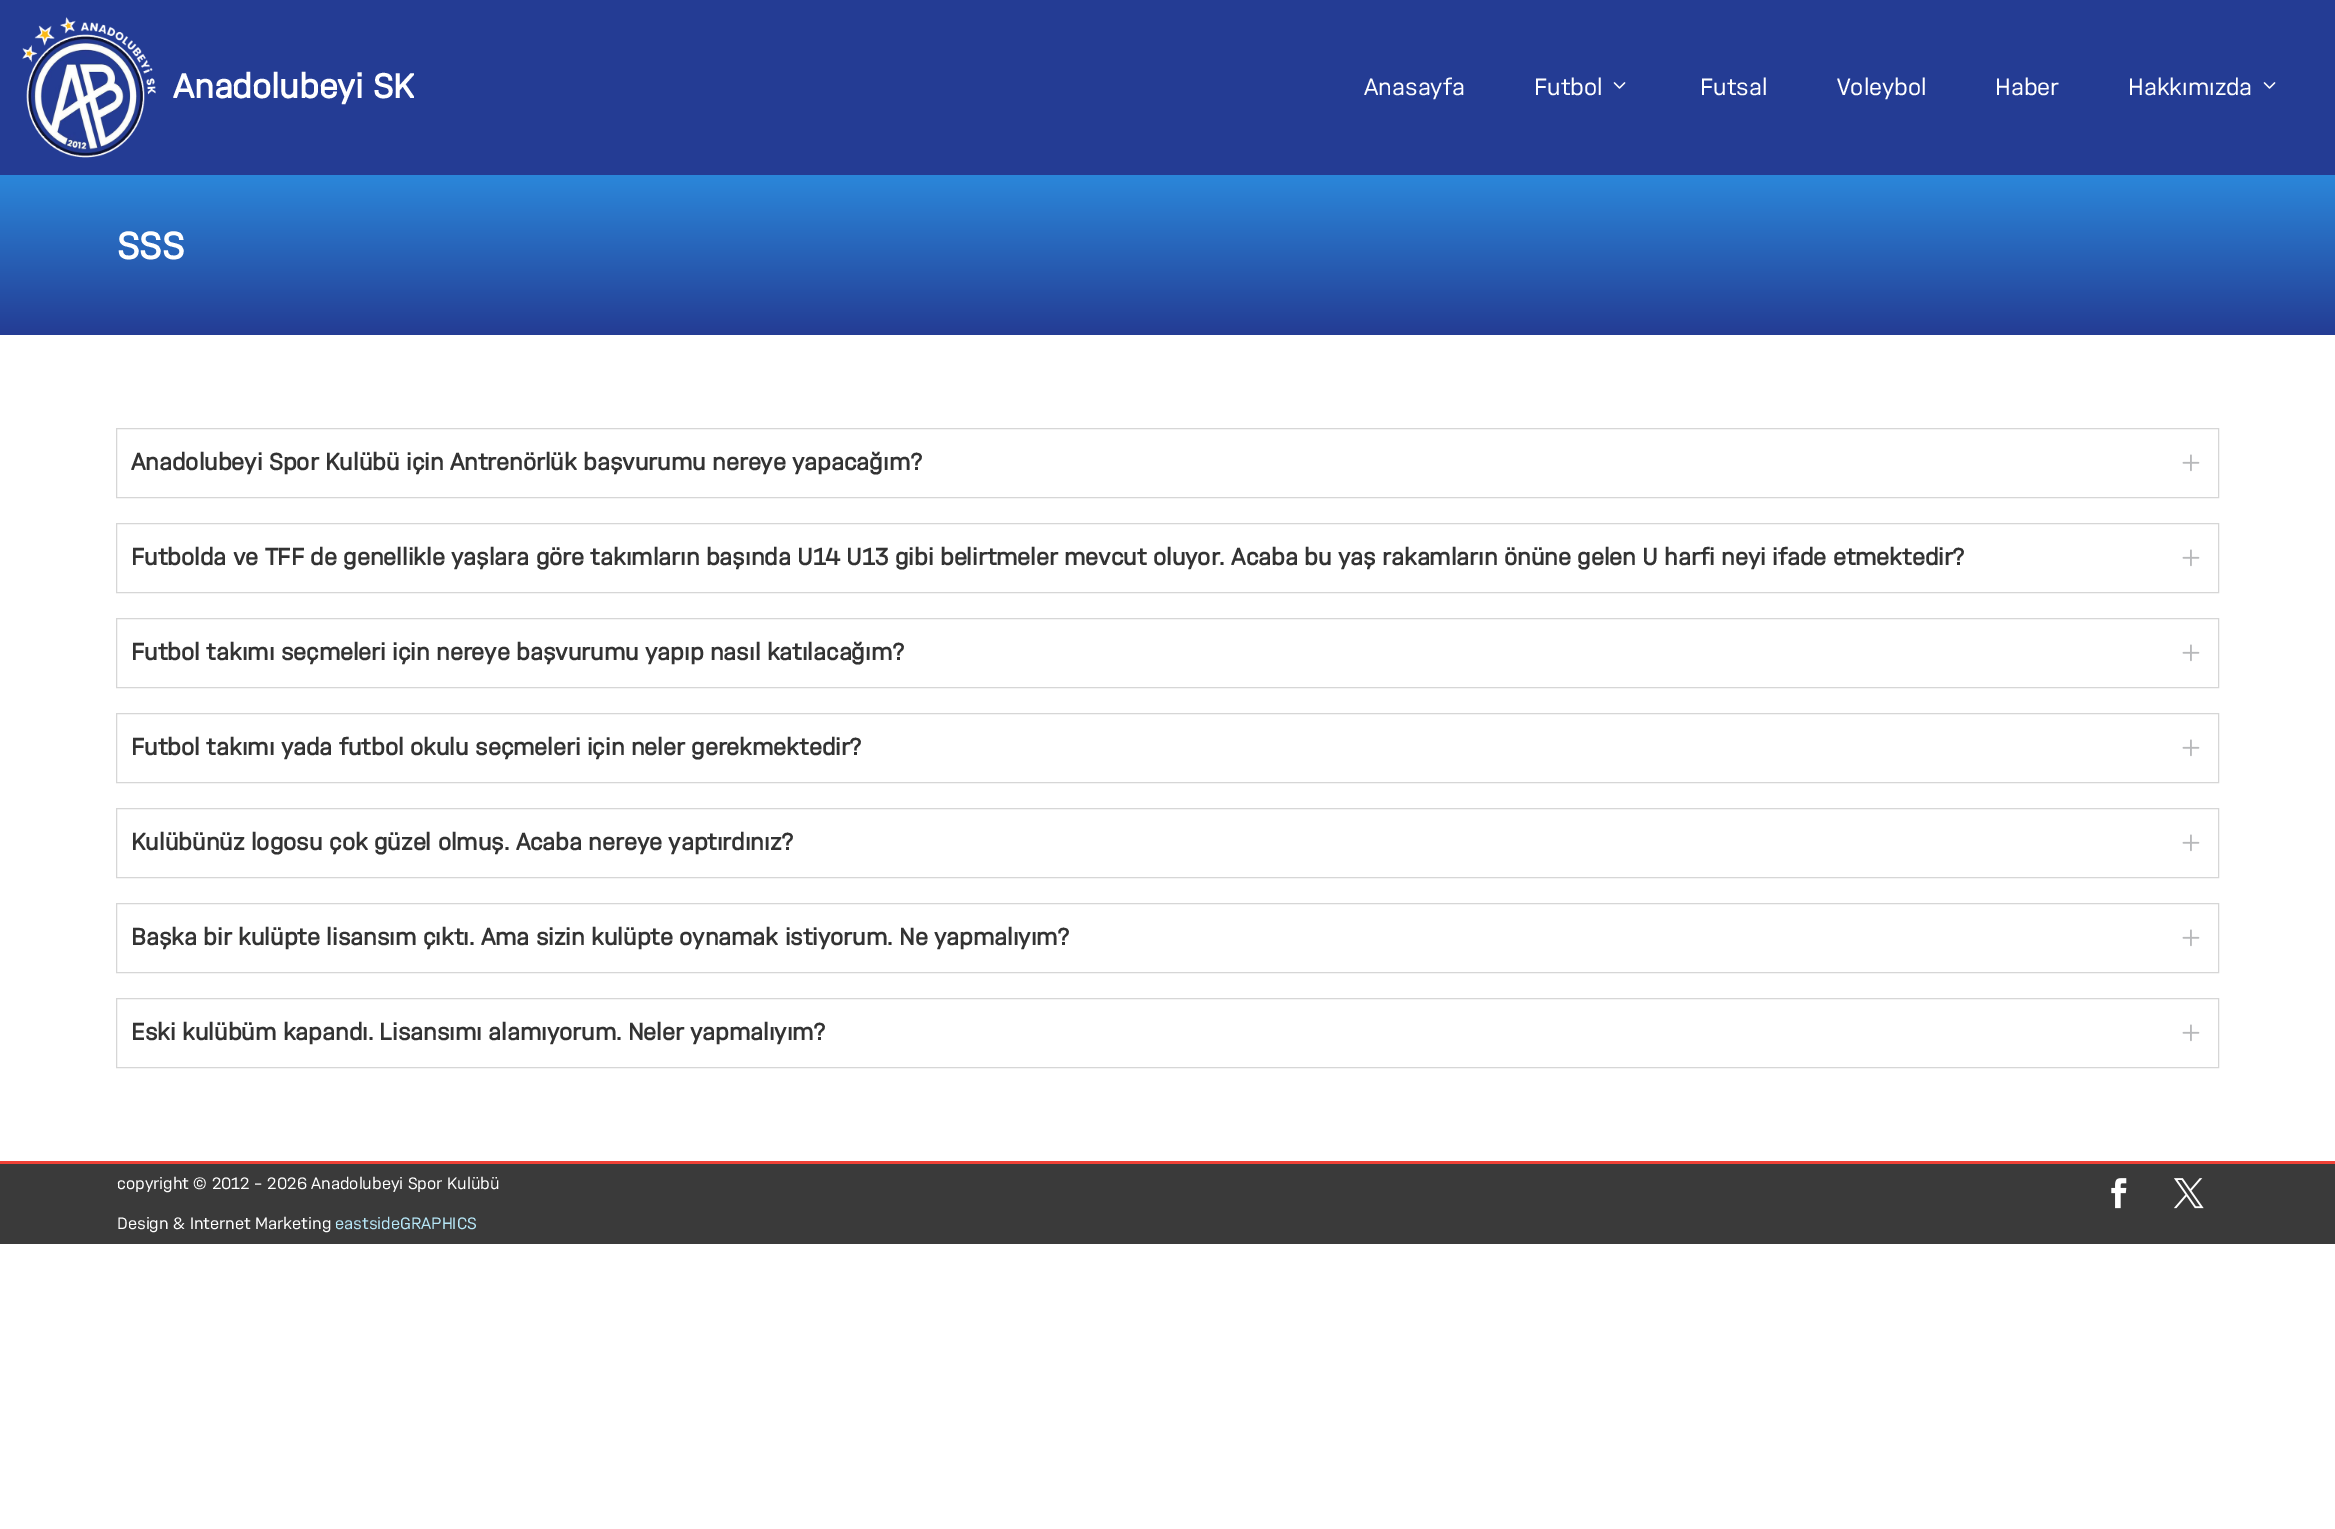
%!PS
<< /PageSize [2335 1529] >> setpagedevice
/rgb { 3 { 255 div 3 1 roll } repeat setrgbcolor } def
/font { [ exch dup neg 0 0 3 -1 roll 0 0 ] selectfont } def
/text { moveto show } def
/picture { 5 dict begin { /h /w /y /x /name } { exch def } forall
  gsave x y translate w h scale
  w h 8 [w 0 0 h 0 0] name (r) file false 3 colorimage grestore end } def
0 1529 translate 1 -1 scale
4 setmiterlimit
255 255 255 rgb
0 0 2335 1529 rectfill
36 60 148 rgb
0 0 2335 175 rectfill
(img_01.rgb) 22 17 134 141 picture
(img_02.rgb) 1613 82 13 7 picture
(img_02.rgb) 2263 82 13 7 picture
gsave 0 175 moveto 2335 0 rlineto 0 160 rlineto -2335 0 rlineto closepath clip newpath
<< /ShadingType 2 /ColorSpace /DeviceRGB /Coords [1168 175 1168 335] /Extend [true true] /Function << /FunctionType 2 /Domain [0 1] /C0 [0.169 0.529 0.855] /C1 [0.141 0.235 0.58] /N 1 >> >> shfill grestore
214 214 214 rgb
116.5 428.5 2102 69 rectstroke
(img_03.rgb) 2182 454 18 18 picture
116.5 523.5 2102 69 rectstroke
(img_03.rgb) 2182 549 18 18 picture
116.5 618.5 2102 69 rectstroke
(img_03.rgb) 2182 644 18 18 picture
116.5 713.5 2102 69 rectstroke
(img_03.rgb) 2182 739 18 18 picture
116.5 808.5 2102 69 rectstroke
(img_03.rgb) 2182 834 18 18 picture
116.5 903.5 2102 69 rectstroke
(img_03.rgb) 2182 929 18 18 picture
116.5 998.5 2102 69 rectstroke
(img_03.rgb) 2182 1024 18 18 picture
58 58 58 rgb
0 1164 2335 80 rectfill
239 65 54 rgb
0 1161 2335 3 rectfill
(img_04.rgb) 2111 1178 16 31 picture
(img_05.rgb) 2174 1178 30 31 picture
/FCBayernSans-Bold 36.25 font
255 255 255 rgb
(Anadolubeyi SK) 173 98 text
/FCBayernSans-Regular 25 font
(Anasayfa) 1364 95 text
(Futbol) 1534 95 text
(Futsal) 1700 95 text
(Voleybol) 1837 95 text
(Haber) 1995 95 text
(Hakkımızda) 2128 95 text
/FCBayernSans-Bold 40 font
(SSS) 117 259 text
/FCBayernSans-Bold 25 font
51 51 51 rgb
(Anadolubeyi Spor Kulübü için Antrenörlük başvurumu nereye yapacağım?) 131 470 text
(Futbolda ve TFF de genellikle yaşlara göre takımların başında U14 U13 gibi belirtmeler mevcut oluyor. Acaba bu yaş rakamların önüne gelen U harfi neyi ifade etmektedir?) 131 565 text
(Futbol takımı seçmeleri için nereye başvurumu yapıp nasıl katılacağım?) 131 660 text
(Futbol takımı yada futbol okulu seçmeleri için neler gerekmektedir?) 131 755 text
(Kulübünüz logosu çok güzel olmuş. Acaba nereye yaptırdınız?) 131 850 text
(Başka bir kulüpte lisansım çıktı. Ama sizin kulüpte oynamak istiyorum. Ne yapmalıyım?) 131 945 text
(Eski kulübüm kapandı. Lisansımı alamıyorum. Neler yapmalıyım?) 131 1040 text
/FCBayernSans-Regular 17.5 font
255 255 255 rgb
(copyright © 2012 – 2026 Anadolubeyi Spor Kulübü) 117 1189 text
(Design & Internet Marketing) 117 1229 text
183 231 247 rgb
(eastsideGRAPHICS) 335 1229 text
showpage
